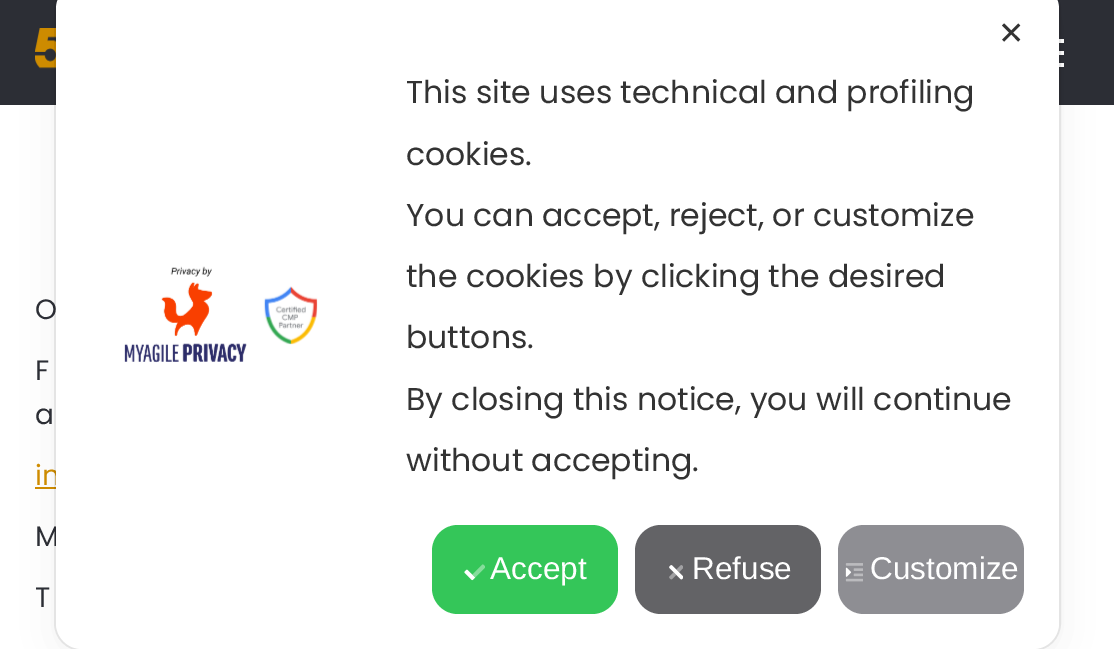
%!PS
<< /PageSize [1114 649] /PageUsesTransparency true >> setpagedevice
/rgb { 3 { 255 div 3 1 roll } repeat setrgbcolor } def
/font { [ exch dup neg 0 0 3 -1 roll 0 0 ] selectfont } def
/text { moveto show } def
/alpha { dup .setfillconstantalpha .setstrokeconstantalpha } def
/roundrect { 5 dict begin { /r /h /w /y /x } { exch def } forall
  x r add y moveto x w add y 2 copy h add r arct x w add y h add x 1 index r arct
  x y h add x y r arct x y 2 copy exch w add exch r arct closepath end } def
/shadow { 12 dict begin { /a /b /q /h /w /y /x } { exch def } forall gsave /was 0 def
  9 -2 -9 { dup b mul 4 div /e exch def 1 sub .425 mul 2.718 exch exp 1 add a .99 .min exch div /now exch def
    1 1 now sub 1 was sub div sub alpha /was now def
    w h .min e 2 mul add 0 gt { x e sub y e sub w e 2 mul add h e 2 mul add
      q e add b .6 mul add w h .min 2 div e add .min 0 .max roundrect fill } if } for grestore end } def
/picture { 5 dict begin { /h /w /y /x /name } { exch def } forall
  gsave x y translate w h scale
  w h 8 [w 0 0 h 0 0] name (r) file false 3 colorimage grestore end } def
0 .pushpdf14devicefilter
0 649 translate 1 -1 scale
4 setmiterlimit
255 255 255 rgb
0 0 1114 649 rectfill
44 46 53 rgb
0 0 1114 105 rectfill
(img_01.rgb) 35 28 21 41 picture
255 255 255 rgb
1059 39 5 4 rectfill
1059 51 5 4 rectfill
1059 63 5 4 rectfill
209 142 0 rgb
35 487 21 2 rectfill
/Poppins-Regular 28 font
44 46 53 rgb
(O) 35 319 text
(F) 35 380 text
(a) 35 424 text
209 142 0 rgb
(in) 35 485 text
44 46 53 rgb
(M) 35 546 text
(T) 35 607 text
0.08 alpha
0 0 0 rgb
2 setlinewidth
55 -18 1005 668 27 roundrect stroke
1 alpha
56 -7 1003 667 26 21 0.05 shadow
255 255 255 rgb
56 -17 1003 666 26 roundrect fill
/DejaVuSans-Regular 31.5 font
51 51 51 rgb
(✕) 998 44 text
(img_02.rgb) 124 266 194 97 picture
/Poppins-Regular 31.5 font
(This site uses technical and profiling) 406 103 text
(cookies.) 406 165 text
(You can accept, reject, or customize) 406 226 text
(the cookies by clicking the desired) 406 287 text
(buttons.) 406 348 text
(By closing this notice, you will continue) 406 410 text
(without accepting.) 406 471 text
52 198 89 rgb
432 525 186 89 26 roundrect fill
(img_03.rgb) 464 564 21 17 picture
/LiberationSans-Regular 31.5 font
255 255 255 rgb
(Accept) 490 579 text
99 99 102 rgb
635 525 186 89 26 roundrect fill
(img_04.rgb) 669 565 14 15 picture
255 255 255 rgb
(Refuse) 692 579 text
142 142 147 rgb
838 525 186 89 26 roundrect fill
(img_05.rgb) 845 563 18 19 picture
255 255 255 rgb
(Customize) 870 579 text
.poppdf14devicefilter showpage
